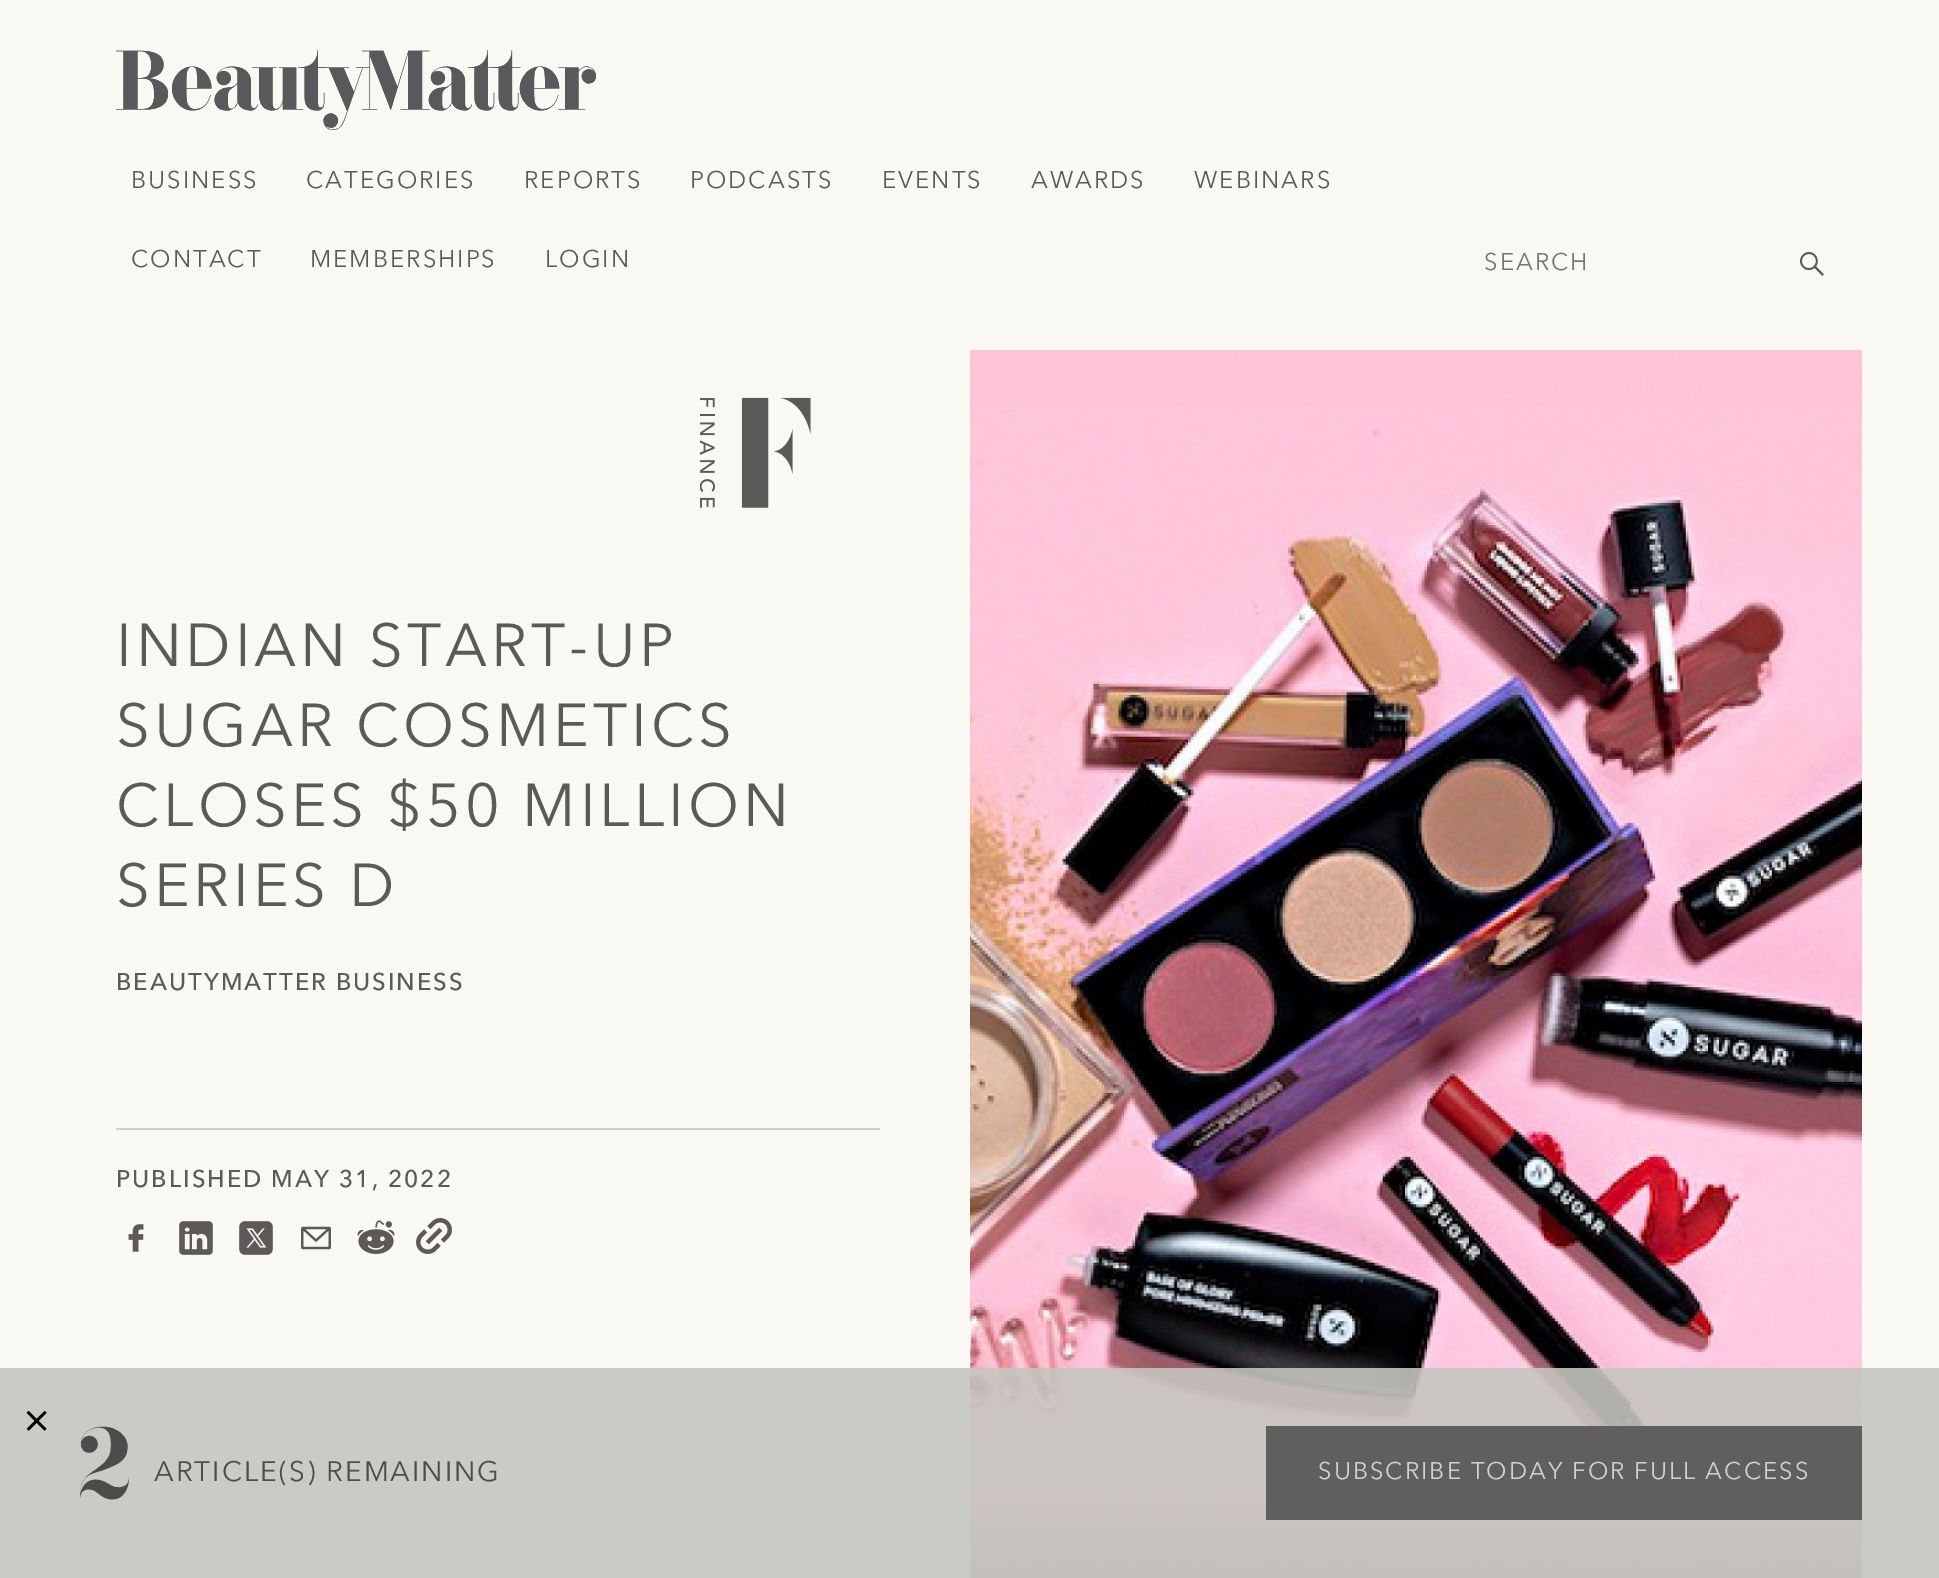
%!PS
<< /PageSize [1939 1578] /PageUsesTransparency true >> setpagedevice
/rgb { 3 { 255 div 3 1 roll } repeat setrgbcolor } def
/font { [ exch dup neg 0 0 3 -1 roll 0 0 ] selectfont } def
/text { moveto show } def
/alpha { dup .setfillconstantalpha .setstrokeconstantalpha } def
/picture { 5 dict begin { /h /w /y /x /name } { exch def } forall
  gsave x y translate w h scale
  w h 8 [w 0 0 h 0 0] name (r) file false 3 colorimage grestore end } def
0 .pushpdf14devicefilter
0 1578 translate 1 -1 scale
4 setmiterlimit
255 255 255 rgb
0 0 1939 1578 rectfill
249 248 243 rgb
0 0 1939 1482 rectfill
(img_01.rgb) 116 50 480 80 picture
(img_02.rgb) 1800 252 24 24 picture
(img_03.rgb) 700 397 111 111 picture
205 205 203 rgb
116 1128 764 2 rectfill
(img_04.rgb) 128 1224 16 28 picture
(img_05.rgb) 179 1221 34 34 picture
(img_06.rgb) 239 1221 34 34 picture
(img_07.rgb) 301 1226 30 24 picture
(img_08.rgb) 357 1220 38 34 picture
(img_09.rgb) 416 1218 36 36 picture
(img_10.rgb) 970 350 892 1228 picture
0.89 alpha
197 197 191 rgb
0 1368 1939 210 rectfill
1 alpha
95 96 93 rgb
1266 1426 596 94 rectfill
/AvenirNext-Regular 24 font
91 90 89 rgb
131 188 moveto 2 0 (BUSINESS) ashow
306 188 moveto 2 0 (CATEGORIES) ashow
524 188 moveto 2 0 (REPORTS) ashow
690 188 moveto 2 0 (PODCASTS) ashow
882 188 moveto 2 0 (EVENTS) ashow
1031 188 moveto 2 0 (AWARDS) ashow
1194 188 moveto 2 0 (WEBINARS) ashow
131 267 moveto 2 0 (CONTACT) ashow
310 267 moveto 2 0 (MEMBERSHIPS) ashow
545 267 moveto 2 0 (LOGIN) ashow
117 117 117 rgb
1484 270 moveto 2 0 (SEARCH) ashow
/AvenirNext-Regular 60 font
91 90 89 rgb
116 666 moveto 4 0 (INDIAN START-UP) ashow
116 746 moveto 4 0 (SUGAR COSMETICS) ashow
116 826 moveto 4 0 (CLOSES $50 MILLION) ashow
116 906 moveto 4 0 (SERIES D) ashow
/AvenirNext-Medium 24 font
116 990 moveto 2 0 (BEAUTYMATTER BUSINESS) ashow
116 1187 moveto 2 0 (PUBLISHED MAY 31, 2022) ashow
/AvenirNext-Regular 50 font
0 0 0 rgb
(×) 20 1436 text
/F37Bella-Regular 100 font
76 76 76 rgb
78 1498 moveto 2 0 (2) ashow
/AvenirNext-Regular 28 font
154 1481 moveto 2 0 (ARTICLE\(S\) REMAINING) ashow
/AvenirNext-Regular 24 font
212 210 206 rgb
1318 1479 moveto 2 0 (SUBSCRIBE TODAY FOR FULL ACCESS) ashow
.poppdf14devicefilter showpage
